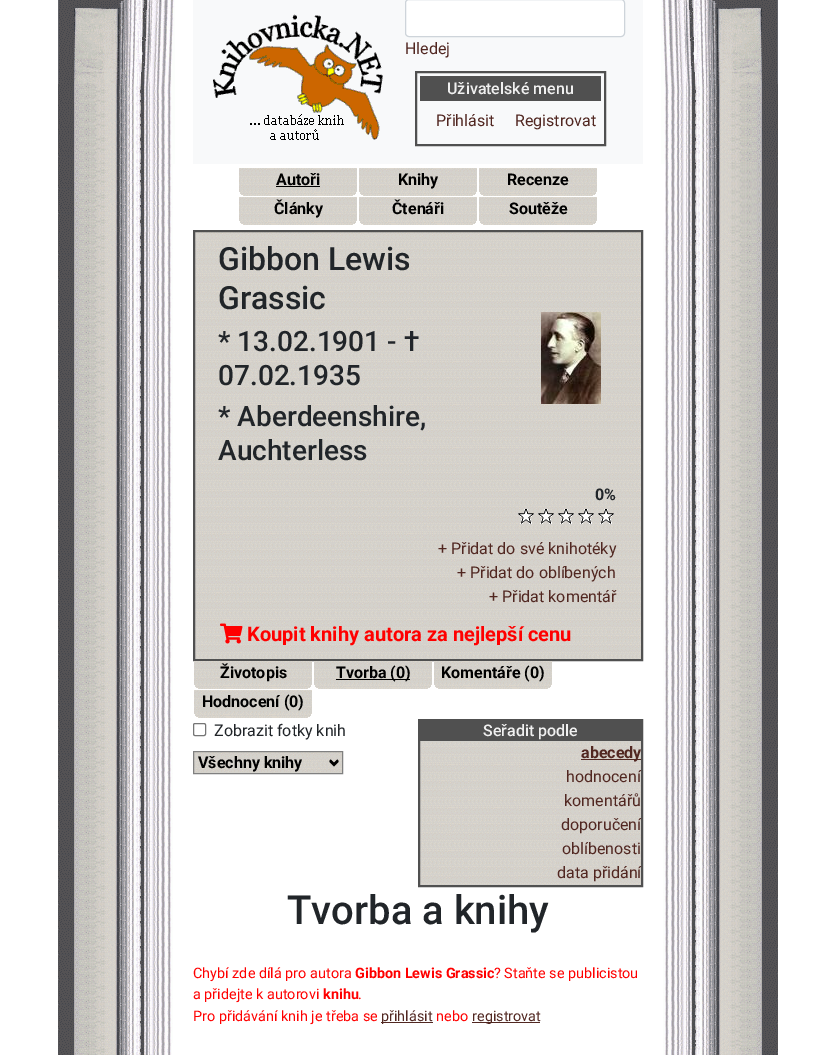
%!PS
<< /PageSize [836 1055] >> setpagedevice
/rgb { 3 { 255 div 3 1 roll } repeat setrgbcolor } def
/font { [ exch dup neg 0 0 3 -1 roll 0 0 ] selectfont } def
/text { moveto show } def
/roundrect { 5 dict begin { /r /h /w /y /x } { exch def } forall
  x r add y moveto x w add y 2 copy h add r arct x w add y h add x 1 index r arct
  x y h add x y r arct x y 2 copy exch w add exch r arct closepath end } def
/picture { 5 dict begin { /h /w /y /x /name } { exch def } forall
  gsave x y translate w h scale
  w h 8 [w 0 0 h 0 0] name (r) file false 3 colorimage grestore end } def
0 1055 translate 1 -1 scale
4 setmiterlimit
255 255 255 rgb
0 0 836 1055 rectfill
(img_01.rgb) 58 0 117 164 picture
248 249 250 rgb
193 0 450 164 rectfill
(img_02.rgb) 213 14 170 126 picture
255 255 255 rgb
405.5 -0.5 219 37 3.5 roundrect gsave fill grestore
206 212 218 rgb
stroke
80 80 80 rgb
2 setlinewidth
416 72 189 73 rectstroke
420 76 181 25 rectfill
(img_03.rgb) 661 0 117 164 picture
(img_04.rgb) 58 164 115 66 picture
(img_05.rgb) 239 168 118 24 picture
0 0 0 rgb
276 186 44 1 rectfill
(img_06.rgb) 240 192 116 2 picture
(img_07.rgb) 241 194 114 1 picture
(img_08.rgb) 243 195 110 1 picture
(img_05.rgb) 359 168 118 24 picture
(img_06.rgb) 360 192 116 2 picture
(img_07.rgb) 361 194 114 1 picture
(img_08.rgb) 363 195 110 1 picture
(img_05.rgb) 479 168 118 24 picture
(img_06.rgb) 480 192 116 2 picture
(img_07.rgb) 481 194 114 1 picture
(img_08.rgb) 483 195 110 1 picture
(img_05.rgb) 239 197 118 24 picture
(img_06.rgb) 240 221 116 2 picture
(img_07.rgb) 241 223 114 1 picture
(img_08.rgb) 243 224 110 1 picture
(img_05.rgb) 359 197 118 24 picture
(img_06.rgb) 360 221 116 2 picture
(img_07.rgb) 361 223 114 1 picture
(img_08.rgb) 363 224 110 1 picture
(img_05.rgb) 479 197 118 24 picture
(img_06.rgb) 480 221 116 2 picture
(img_07.rgb) 481 223 114 1 picture
(img_08.rgb) 483 224 110 1 picture
(img_09.rgb) 665 164 113 66 picture
(img_10.rgb) 58 230 115 813 picture
(img_11.rgb) 195 232 446 427 picture
80 80 80 rgb
194 231 448 429 rectstroke
(img_12.rgb) 541 312 60 92 picture
(img_13.rgb) 518 509 96 15 picture
(img_14.rgb) 220 623 23 21 picture
(img_05.rgb) 194 661 118 24 picture
(img_06.rgb) 195 685 116 2 picture
(img_07.rgb) 196 687 114 1 picture
(img_08.rgb) 198 688 110 1 picture
(img_05.rgb) 314 661 118 24 picture
0 0 0 rgb
336 679 74 1 rectfill
(img_06.rgb) 315 685 116 2 picture
(img_07.rgb) 316 687 114 1 picture
(img_08.rgb) 318 688 110 1 picture
(img_05.rgb) 434 661 118 24 picture
(img_06.rgb) 435 685 116 2 picture
(img_07.rgb) 436 687 114 1 picture
(img_08.rgb) 438 688 110 1 picture
(img_05.rgb) 194 690 118 24 picture
(img_06.rgb) 195 714 116 2 picture
(img_07.rgb) 196 716 114 1 picture
(img_08.rgb) 198 717 110 1 picture
118 118 118 rgb
1 setlinewidth
193.5 723.5 12 12 1.5 roundrect stroke
(img_15.rgb) 194 752 148 21 picture
128 128 128 rgb
193.5 751.5 149 22 rectstroke
0 0 0 rgb
2 setlinewidth
330 761 moveto 4 4 rlineto 4 -4 rlineto stroke
(img_16.rgb) 420 741 221 144 picture
80 80 80 rgb
419 720 223 166 rectstroke
420 721 221 20 rectfill
81 39 33 rgb
581 759 60 1 rectfill
381 1022 52 1 rectfill
472 1022 68 1 rectfill
(img_17.rgb) 663 230 115 813 picture
(img_18.rgb) 58 1043 114 12 picture
(img_19.rgb) 663 1043 115 12 picture
/Roboto-Regular 16 font
(Hledej) 405 54 text
/Roboto-Medium 16 font
240 240 240 rgb
(Uživatelské menu) 447 94 text
/Roboto-Regular 16 font
81 39 33 rgb
(Přihlásit) 436 126 text
(Registrovat) 515 126 text
/Roboto-Bold 16 font
0 0 0 rgb
(Autoři) 276 185 text
(Knihy) 398 185 text
(Recenze) 507 185 text
(Články) 274 214 text
(Čtenáři) 392 214 text
(Soutěže) 509 214 text
/Roboto-Medium 32 font
33 37 41 rgb
(Gibbon Lewis) 218 270 text
(Grassic) 218 309 text
/Roboto-Medium 28 font
(* 13.02.1901 - †) 218 351 text
(07.02.1935) 218 385 text
(* Aberdeenshire,) 218 426 text
(Auchterless) 218 460 text
/Roboto-Bold 16 font
(0%) 595 500 text
/Roboto-Regular 16 font
81 39 33 rgb
(+ Přidat do své knihotéky) 438 554 text
(+ Přidat do oblíbených) 457 578 text
(+ Přidat komentář) 489 602 text
/Roboto-Bold 20 font
255 0 0 rgb
(Koupit knihy autora za nejlepší cenu) 247 641 text
/Roboto-Bold 16 font
0 0 0 rgb
(Životopis) 220 678 text
(Tvorba \(0\)) 336 678 text
(Komentáře \(0\)) 441 678 text
(Hodnocení \(0\)) 202 707 text
/Roboto-Regular 16 font
33 37 41 rgb
(Zobrazit fotky knih) 214 736 text
/Roboto-Bold 16 font
0 0 0 rgb
(Všechny knihy) 198 768 text
/Roboto-Medium 16 font
240 240 240 rgb
(Seřadit podle) 483 736 text
/Roboto-Bold 16 font
81 39 33 rgb
(abecedy) 581 758 text
/Roboto-Regular 16 font
(hodnocení) 566 782 text
(komentářů) 564 806 text
(doporučení) 561 830 text
(oblíbenosti) 562 854 text
(data přidání) 557 878 text
/Roboto-Medium 40 font
33 37 41 rgb
(Tvorba a knihy) 287 924 text
/Roboto-Regular 14.4 font
255 0 0 rgb
(Chybí zde dílá pro autora) 193 978 text
/Roboto-Bold 14.4 font
(Gibbon Lewis Grassic) 355 978 text
/Roboto-Regular 14.4 font
(? Staňte se publicistou) 494 978 text
(a přidejte k autorovi) 193 999 text
/Roboto-Bold 14.4 font
(knihu) 323 999 text
/Roboto-Regular 14.4 font
(.) 358 999 text
(Pro přidávání knih je třeba se) 193 1021 text
81 39 33 rgb
(přihlásit) 381 1021 text
255 0 0 rgb
(nebo) 436 1021 text
81 39 33 rgb
(registrovat) 472 1021 text
showpage
